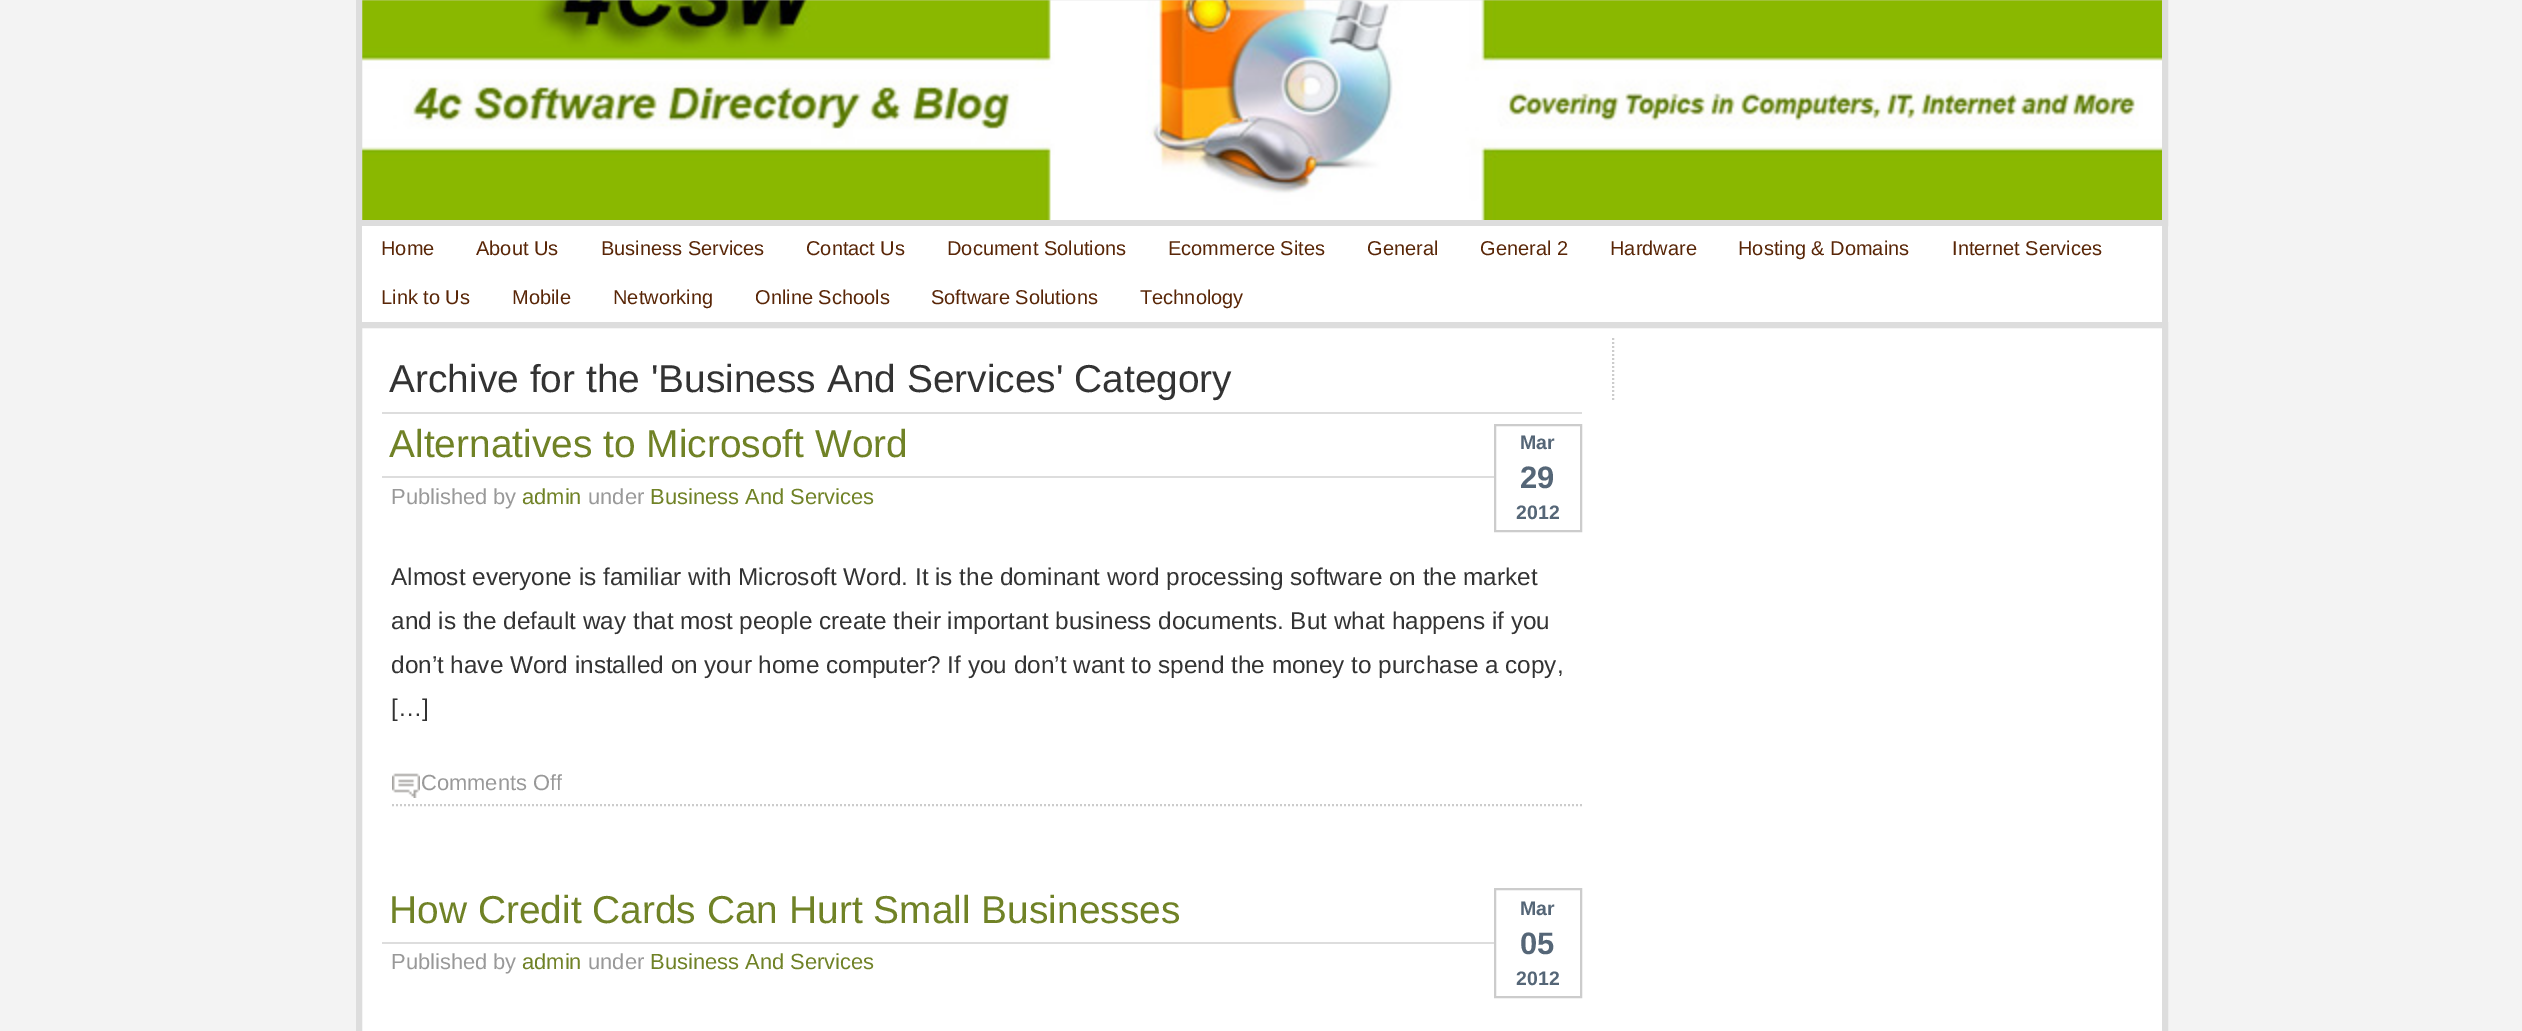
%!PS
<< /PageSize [2522 1031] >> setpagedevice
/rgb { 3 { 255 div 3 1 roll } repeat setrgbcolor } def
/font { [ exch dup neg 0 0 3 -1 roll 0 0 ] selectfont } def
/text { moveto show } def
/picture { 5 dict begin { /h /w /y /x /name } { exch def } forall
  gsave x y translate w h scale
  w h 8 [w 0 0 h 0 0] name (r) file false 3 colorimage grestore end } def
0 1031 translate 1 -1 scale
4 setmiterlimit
243 243 243 rgb
0 0 2522 1031 rectfill
(img_01.rgb) 362 0 1800 220 picture
221 221 221 rgb
6 setlinewidth
359 -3 1806 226 rectstroke
255 255 255 rgb
362 226 1800 96 rectfill
221 221 221 rgb
2162 226 6 96 rectfill
356 226 6 96 rectfill
255 255 255 rgb
359 325 moveto 1806 0 rlineto 0 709 rlineto -1806 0 rlineto closepath gsave fill grestore
221 221 221 rgb
stroke
382 412 1200 2 rectfill
382 476 1112 2 rectfill
204 204 204 rgb
2 setlinewidth
1495 425 86 106 rectstroke
(img_02.rgb) 392 773 28 25 picture
[2 2] 0 setdash
392 805 moveto 1190 0 rlineto stroke
221 221 221 rgb
382 942 1112 2 rectfill
204 204 204 rgb
[] 0 setdash
1495 889 86 108 rectstroke
[2 2] 0 setdash
1613 338 moveto 0 64 rlineto stroke
/LiberationSans-Regular 20 font
89 38 7 rgb
(Home) 381 255 text
(About Us) 476 255 text
(Business Services) 601 255 text
(Contact Us) 806 255 text
(Document Solutions) 947 255 text
(Ecommerce Sites) 1168 255 text
(General) 1367 255 text
(General 2) 1480 255 text
(Hardware) 1610 255 text
(Hosting & Domains) 1738 255 text
(Internet Services) 1952 255 text
(Link to Us) 381 304 text
(Mobile) 512 304 text
(Networking) 613 304 text
(Online Schools) 755 304 text
(Software Solutions) 931 304 text
(Technology) 1140 304 text
/LiberationSans-Regular 38.9 font
51 51 51 rgb
(Archive for the 'Business And Services' Category) 389 392 text
112 130 38 rgb
(Alternatives to Microsoft Word) 389 457 text
/LiberationSans-Bold 19.5 font
85 102 119 rgb
(Mar) 1520 449 text
/LiberationSans-Bold 31 font
(29) 1520 488 text
/LiberationSans-Bold 19.5 font
(2012) 1516 519 text
/LiberationSans-Regular 21.9 font
153 153 153 rgb
(Published by) 391 504 text
112 130 38 rgb
(admin) 522 504 text
153 153 153 rgb
(under) 588 504 text
112 130 38 rgb
(Business And Services) 650 504 text
/LiberationSans-Regular 24.3 font
51 51 51 rgb
(Almost everyone is familiar with Microsoft Word. It is the dominant word processing software on the market) 391 585 text
(and is the default way that most people create their important business documents. But what happens if you) 391 629 text
(don’t have Word installed on your home computer? If you don’t want to spend the money to purchase a copy,) 391 673 text
([…]) 391 716 text
/LiberationSans-Regular 21.9 font
153 153 153 rgb
(Comments Off) 421 790 text
/LiberationSans-Regular 38.9 font
112 130 38 rgb
(How Credit Cards Can Hurt Small Businesses) 389 923 text
/LiberationSans-Bold 19.5 font
85 102 119 rgb
(Mar) 1520 915 text
/LiberationSans-Bold 31 font
(05) 1520 954 text
/LiberationSans-Bold 19.5 font
(2012) 1516 985 text
/LiberationSans-Regular 21.9 font
153 153 153 rgb
(Published by) 391 969 text
112 130 38 rgb
(admin) 522 969 text
153 153 153 rgb
(under) 588 969 text
112 130 38 rgb
(Business And Services) 650 969 text
showpage
